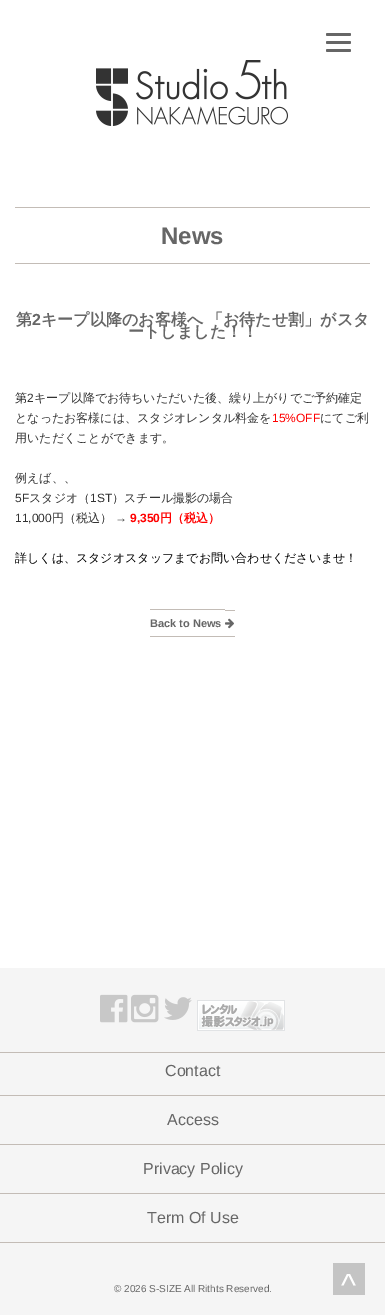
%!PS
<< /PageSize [385 1315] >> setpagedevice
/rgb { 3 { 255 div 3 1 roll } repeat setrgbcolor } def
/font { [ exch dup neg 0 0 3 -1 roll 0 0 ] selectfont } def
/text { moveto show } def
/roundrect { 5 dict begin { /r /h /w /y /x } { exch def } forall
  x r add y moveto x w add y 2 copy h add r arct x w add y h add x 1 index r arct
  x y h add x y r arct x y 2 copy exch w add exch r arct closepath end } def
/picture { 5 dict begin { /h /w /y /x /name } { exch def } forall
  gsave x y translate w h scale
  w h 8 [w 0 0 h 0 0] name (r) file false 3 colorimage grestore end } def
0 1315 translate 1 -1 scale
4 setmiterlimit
255 255 255 rgb
0 0 385 1315 rectfill
102 102 102 rgb
326 41 25 3 1.5 roundrect fill
326 33 25 3 1.5 roundrect fill
326 49 25 3 1.5 roundrect fill
(img_01.rgb) 96 60 192 66 picture
195 188 182 rgb
15 207 355 1 rectfill
15 263 355 1 rectfill
150 609 75 1 rectfill
150 636 85 1 rectfill
225 610 10 1 rectfill
(img_02.rgb) 225 618 9 11 picture
245 245 245 rgb
0 968 385 347 rectfill
(img_03.rgb) 100 994 28 29 picture
(img_04.rgb) 131 994 28 29 picture
(img_05.rgb) 164 997 28 23 picture
(img_06.rgb) 197 1000 88 31 picture
195 188 182 rgb
0 1052 385 1 rectfill
0 1095 385 1 rectfill
0 1144 385 1 rectfill
0 1193 385 1 rectfill
0 1242 385 1 rectfill
196 196 196 rgb
333 1263 32 32 rectfill
/LiberationSans-Bold 24 font
102 102 102 rgb
(News) 161 244 text
/WenQuanYiZenHei-Bold 16 font
(第) 16 325 text
/LiberationSans-Bold 16 font
(2) 32 325 text
/WenQuanYiZenHei-Bold 16 font
(キープ以降のお客様へ) 41 325 text
(「お待たせ割」がスタ) 207 325 text
(ートしました！！) 128 337 text
/WenQuanYiZenHei-Medium 12 font
51 51 51 rgb
(第) 15 402 text
/LiberationSans-Regular 12 font
(2) 27 402 text
/WenQuanYiZenHei-Medium 12 font
(キープ以降でお待ちいただいた後、繰り上がりでご予約確定) 34 402 text
(となったお客様には、スタジオレンタル料金を) 15 422 text
/LiberationSans-Regular 12 font
255 0 0 rgb
(15%OFF) 272 422 text
/WenQuanYiZenHei-Medium 12 font
51 51 51 rgb
(にてご利) 320 422 text
(用いただくことができます。) 15 442 text
(例えば、、) 15 482 text
/LiberationSans-Regular 12 font
(5F) 15 502 text
/WenQuanYiZenHei-Medium 12 font
(スタジオ（) 29 502 text
/LiberationSans-Regular 12 font
(1ST) 90 502 text
/WenQuanYiZenHei-Medium 12 font
(）スチール撮影の場合) 112 502 text
/LiberationSans-Regular 12 font
(11,000) 15 522 text
/WenQuanYiZenHei-Medium 12 font
(円（税込）) 52 522 text
/LiberationSans-Regular 12 font
(→) 115 522 text
/LiberationSans-Bold 12 font
255 0 0 rgb
(9,350) 130 522 text
/WenQuanYiZenHei-Bold 12 font
(円（税込）) 160 522 text
/WenQuanYiZenHei-Medium 12 font
0 0 0 rgb
(詳しくは、スタジオスタッフまでお問い合わせくださいませ！) 15 562 text
/LiberationSans-Bold 11 font
102 102 102 rgb
(Back to News) 150 627 text
/LiberationSans-Regular 16 font
(Contact) 165 1076 text
(Access) 167 1125 text
(Privacy Policy) 143 1174 text
(Term Of Use) 147 1223 text
/LiberationSans-Regular 10 font
(© 2026 S-SIZE All Rithts Reserved.) 114 1292 text
/LiberationSans-Regular 32 font
255 255 255 rgb
(^) 341 1296 text
showpage
